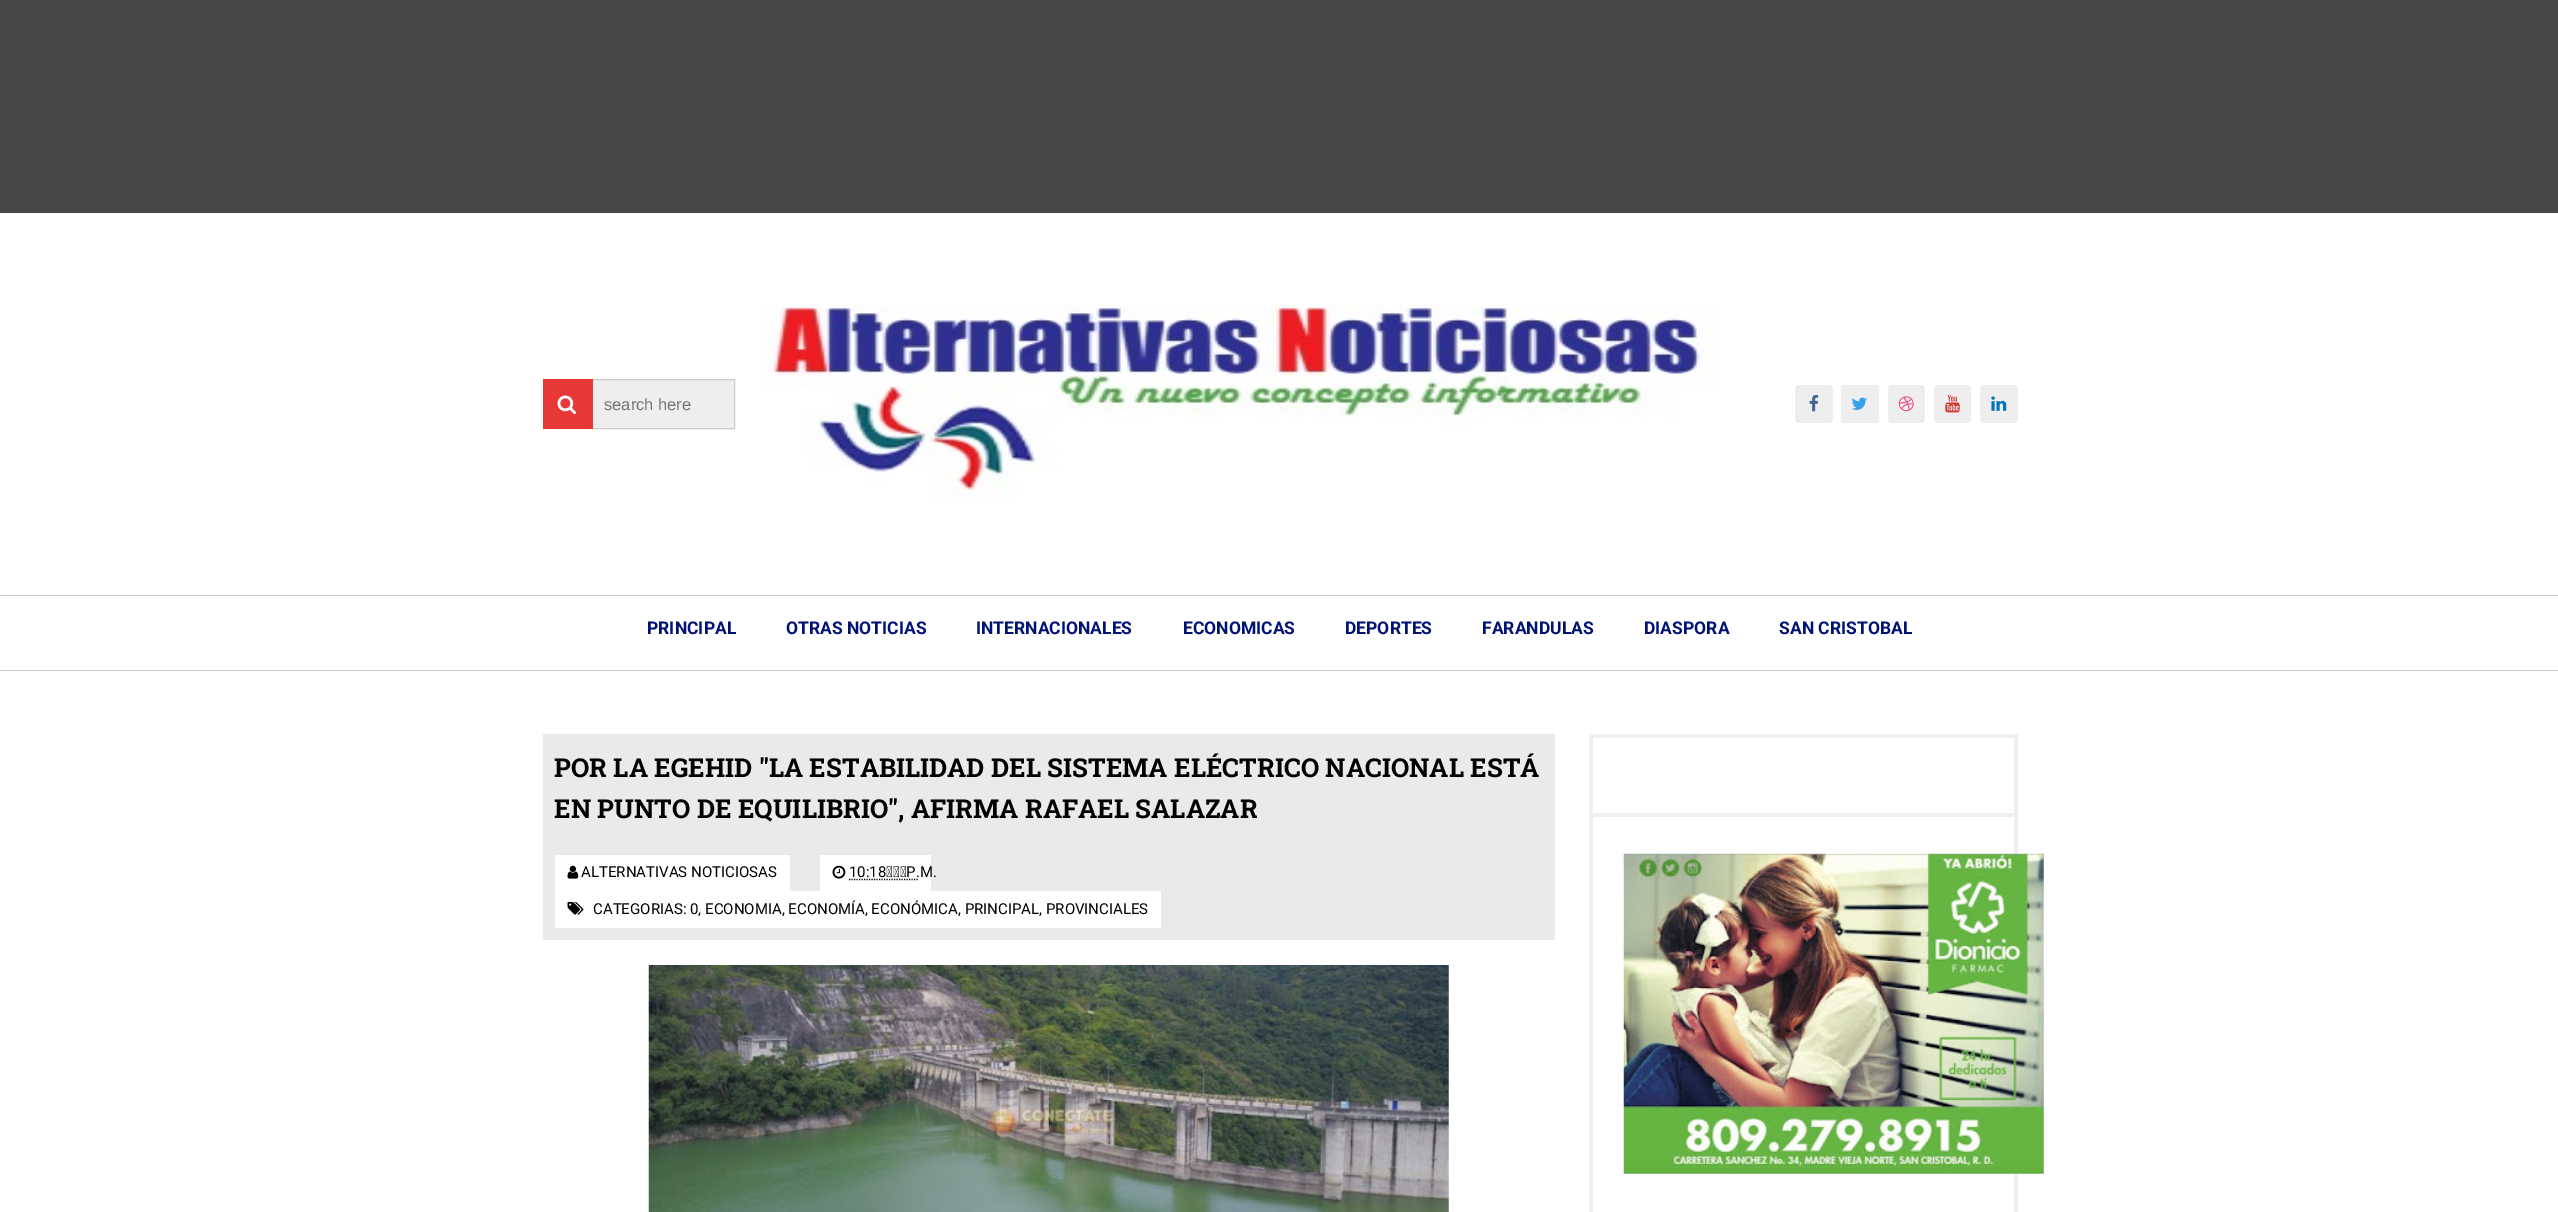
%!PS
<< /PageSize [2558 1212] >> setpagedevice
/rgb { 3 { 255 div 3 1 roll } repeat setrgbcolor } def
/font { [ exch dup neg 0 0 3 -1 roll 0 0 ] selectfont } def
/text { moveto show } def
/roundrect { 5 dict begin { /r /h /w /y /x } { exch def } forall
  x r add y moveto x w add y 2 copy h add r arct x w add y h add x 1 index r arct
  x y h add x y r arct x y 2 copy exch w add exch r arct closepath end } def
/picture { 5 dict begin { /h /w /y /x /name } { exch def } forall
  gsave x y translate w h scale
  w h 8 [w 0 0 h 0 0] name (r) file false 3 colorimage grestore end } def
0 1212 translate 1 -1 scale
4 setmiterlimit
255 255 255 rgb
0 0 2558 1212 rectfill
70 70 70 rgb
0 0 2558 213 rectfill
238 238 238 rgb
593 380 141 48 rectfill
204 204 204 rgb
591.5 379.5 143 49 rectstroke
232 55 55 rgb
543 379 50 50 rectfill
(img_01.rgb) 557 395 20 20 picture
(img_02.rgb) 767 304 947 193 picture
238 238 238 rgb
1795 385 38 38 4 roundrect fill
(img_03.rgb) 1809 395 10 17 picture
1841 385 38 38 4 roundrect fill
(img_04.rgb) 1851 397 16 13 picture
1888 385 37 38 4 roundrect fill
(img_05.rgb) 1898 396 16 16 picture
1934 385 37 38 4 roundrect fill
(img_06.rgb) 1945 395 15 18 picture
1980 385 38 38 4 roundrect fill
(img_07.rgb) 1991 396 16 15 picture
204 204 204 rgb
0 595 2558 1 rectfill
0 670 2558 1 rectfill
234 234 234 rgb
543 734 1012 206 rectfill
255 255 255 rgb
555 855 235 36 rectfill
(img_08.rgb) 567 865 12 14 picture
820 855 111 36 rectfill
(img_09.rgb) 832 865 14 14 picture
0 0 0 rgb
1.2 setlinewidth
[1.25 1.25] 0 setdash
849 879.5 moveto 69.5 0 rlineto stroke
255 255 255 rgb
555 891 606 37 rectfill
(img_10.rgb) 567 901 17 14 picture
(img_11.rgb) 648 965 801 247 picture
239 239 239 rgb
1589 734 429 4 rectfill
2014 734 4 478 rectfill
1589 734 4 478 rectfill
1593 813 421 4 rectfill
(img_12.rgb) 1623 853 421 321 picture
/LiberationSans-Regular 16.5 font
117 117 117 rgb
(search here) 604 410 text
/Roboto-Bold 17.5 font
0 19 117 rgb
(PRINCIPAL) 647 634 text
(OTRAS NOTICIAS) 786 634 text
(INTERNACIONALES) 976 634 text
(ECONOMICAS) 1183 634 text
(DEPORTES) 1345 634 text
(FARANDULAS) 1482 634 text
(DIASPORA) 1644 634 text
(SAN CRISTOBAL) 1779 634 text
/RobotoSlab-Bold 26 font
0 0 0 rgb
(POR LA EGEHID "LA ESTABILIDAD DEL SISTEMA ELÉCTRICO NACIONAL ESTÁ) 554 777 text
(EN PUNTO DE EQUILIBRIO", AFIRMA RAFAEL SALAZAR) 554 818 text
/Roboto-Regular 15 font
(ALTERNATIVAS NOTICIOSAS) 581 877 text
(10:18 P.M.) 849 877 text
(CATEGORIAS: 0, ECONOMIA, ECONOMÍA, ECONÓMICA, PRINCIPAL, PROVINCIALES) 593 914 text
showpage
